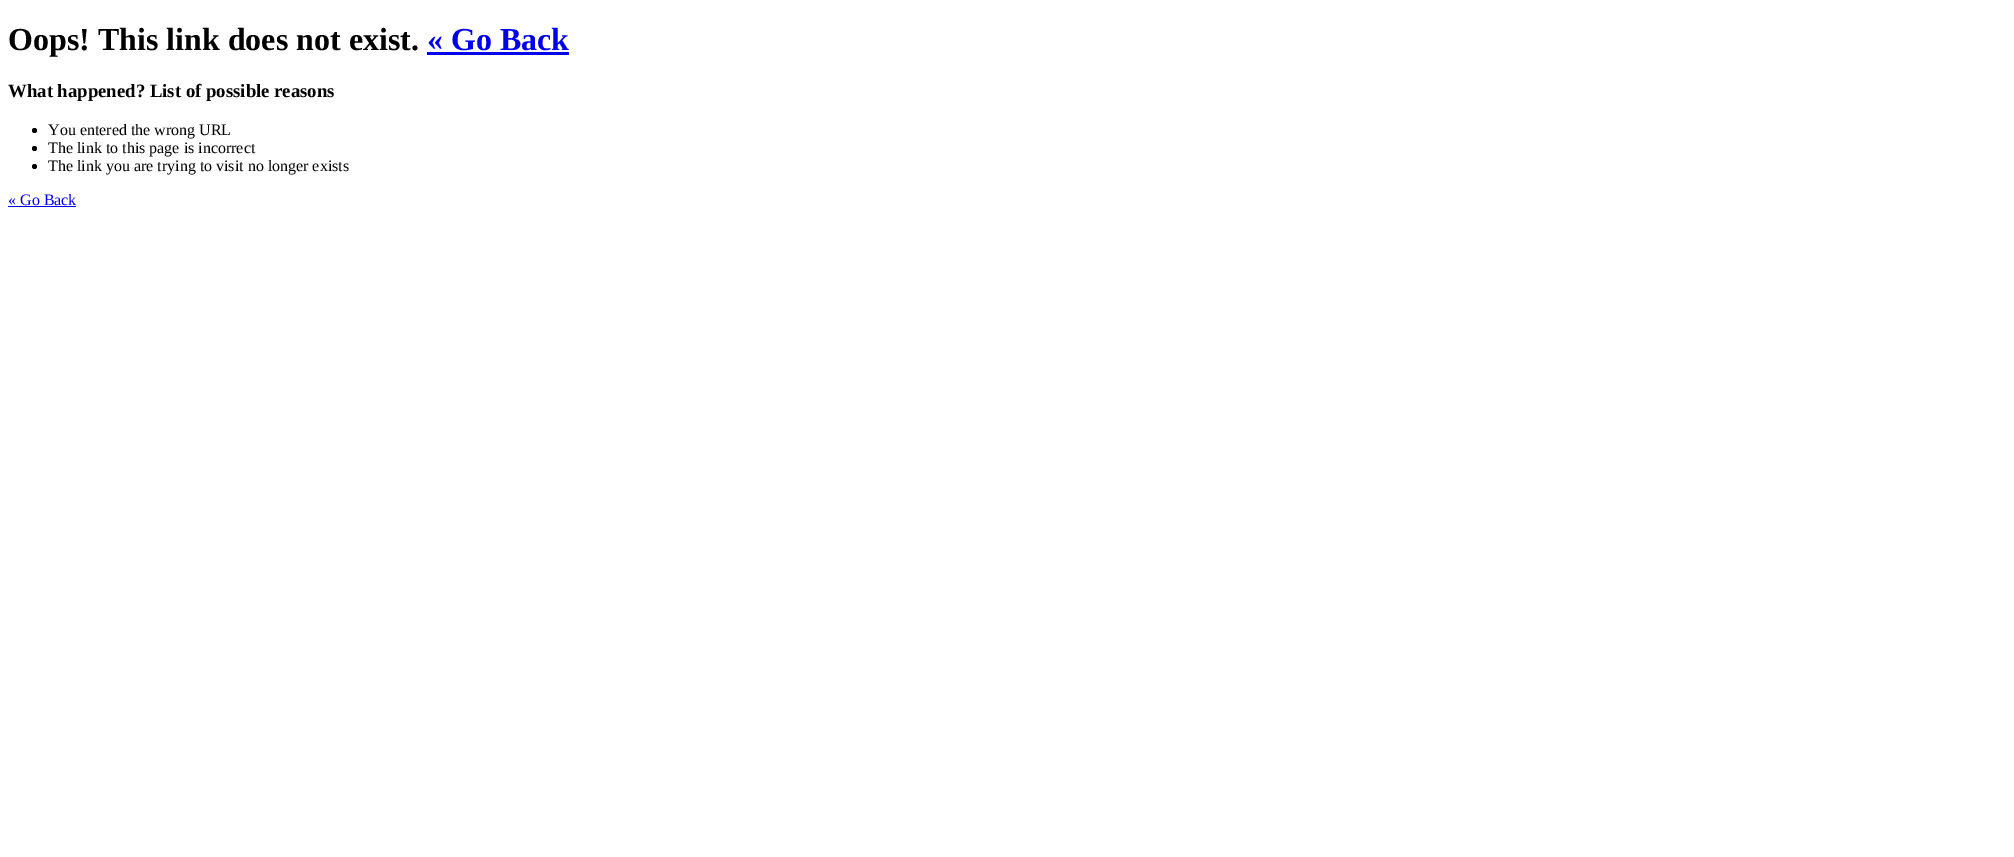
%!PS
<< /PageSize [2014 857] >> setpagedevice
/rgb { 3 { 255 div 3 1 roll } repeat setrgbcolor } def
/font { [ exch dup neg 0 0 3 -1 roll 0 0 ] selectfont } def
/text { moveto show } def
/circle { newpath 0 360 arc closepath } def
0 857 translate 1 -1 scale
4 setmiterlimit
255 255 255 rgb
0 0 2014 857 rectfill
0 0 238 rgb
427 52 142 3 rectfill
0 0 0 rgb
34.5 130.5 2.5 circle fill
34.5 148.5 2.5 circle fill
34.5 166.5 2.5 circle fill
0 0 238 rgb
8 206 68 1 rectfill
/LiberationSerif-Bold 32 font
0 0 0 rgb
(Oops! This link does not exist.) 8 50 text
0 0 238 rgb
(« Go Back) 427 50 text
/LiberationSerif-Bold 18.75 font
0 0 0 rgb
(What happened? List of possible reasons) 8 97 text
/LiberationSerif-Regular 16 font
(You entered the wrong URL) 48 135 text
(The link to this page is incorrect) 48 153 text
(The link you are trying to visit no longer exists) 48 171 text
0 0 238 rgb
(« Go Back) 8 205 text
showpage
